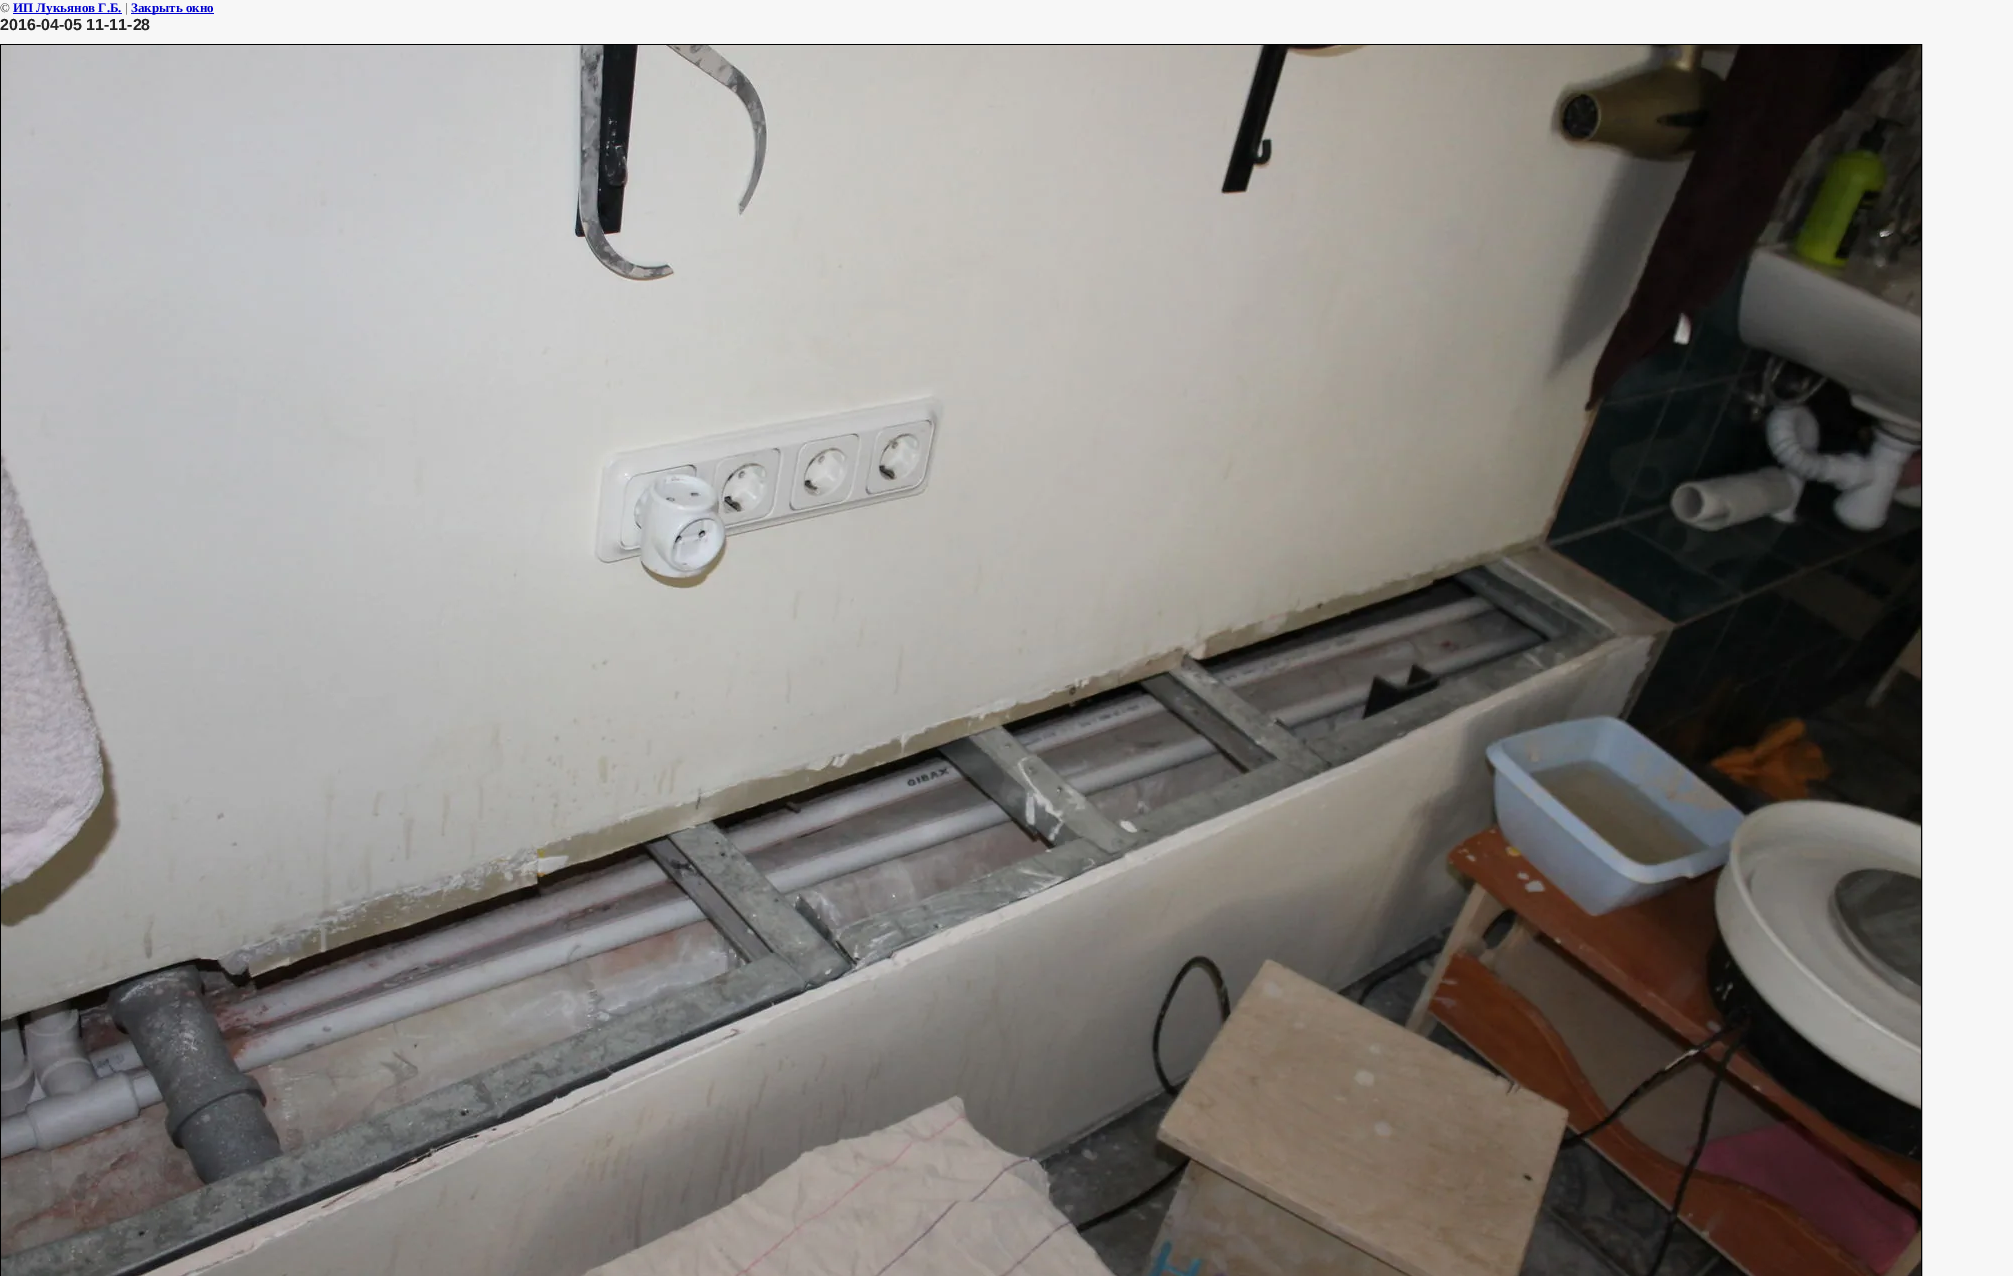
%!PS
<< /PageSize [2013 1276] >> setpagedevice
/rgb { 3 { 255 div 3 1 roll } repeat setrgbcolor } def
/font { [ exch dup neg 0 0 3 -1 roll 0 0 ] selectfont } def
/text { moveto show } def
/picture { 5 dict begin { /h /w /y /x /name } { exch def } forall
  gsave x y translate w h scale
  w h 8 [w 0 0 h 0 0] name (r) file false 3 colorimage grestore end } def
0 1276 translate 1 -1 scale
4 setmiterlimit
247 247 247 rgb
0 0 2013 1276 rectfill
0 0 204 rgb
13 13 109 1 rectfill
131 13 83 1 rectfill
0 0 0 rgb
0.5 44.5 1921 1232 rectstroke
(img_01.rgb) 1 45 1920 1231 picture
/LiberationSerif-Regular 13 font
51 51 51 rgb
(©) 0 12 text
/LiberationSerif-Bold 13 font
0 0 204 rgb
(ИП Лукьянов Г.Б.) 13 12 text
/LiberationSerif-Regular 13 font
51 51 51 rgb
(|) 125 12 text
/LiberationSerif-Bold 13 font
0 0 204 rgb
(Закрыть окно) 131 12 text
/LiberationSans-Bold 16 font
36 36 36 rgb
(2016-04-05 11-11-28) 0 30 text
showpage
